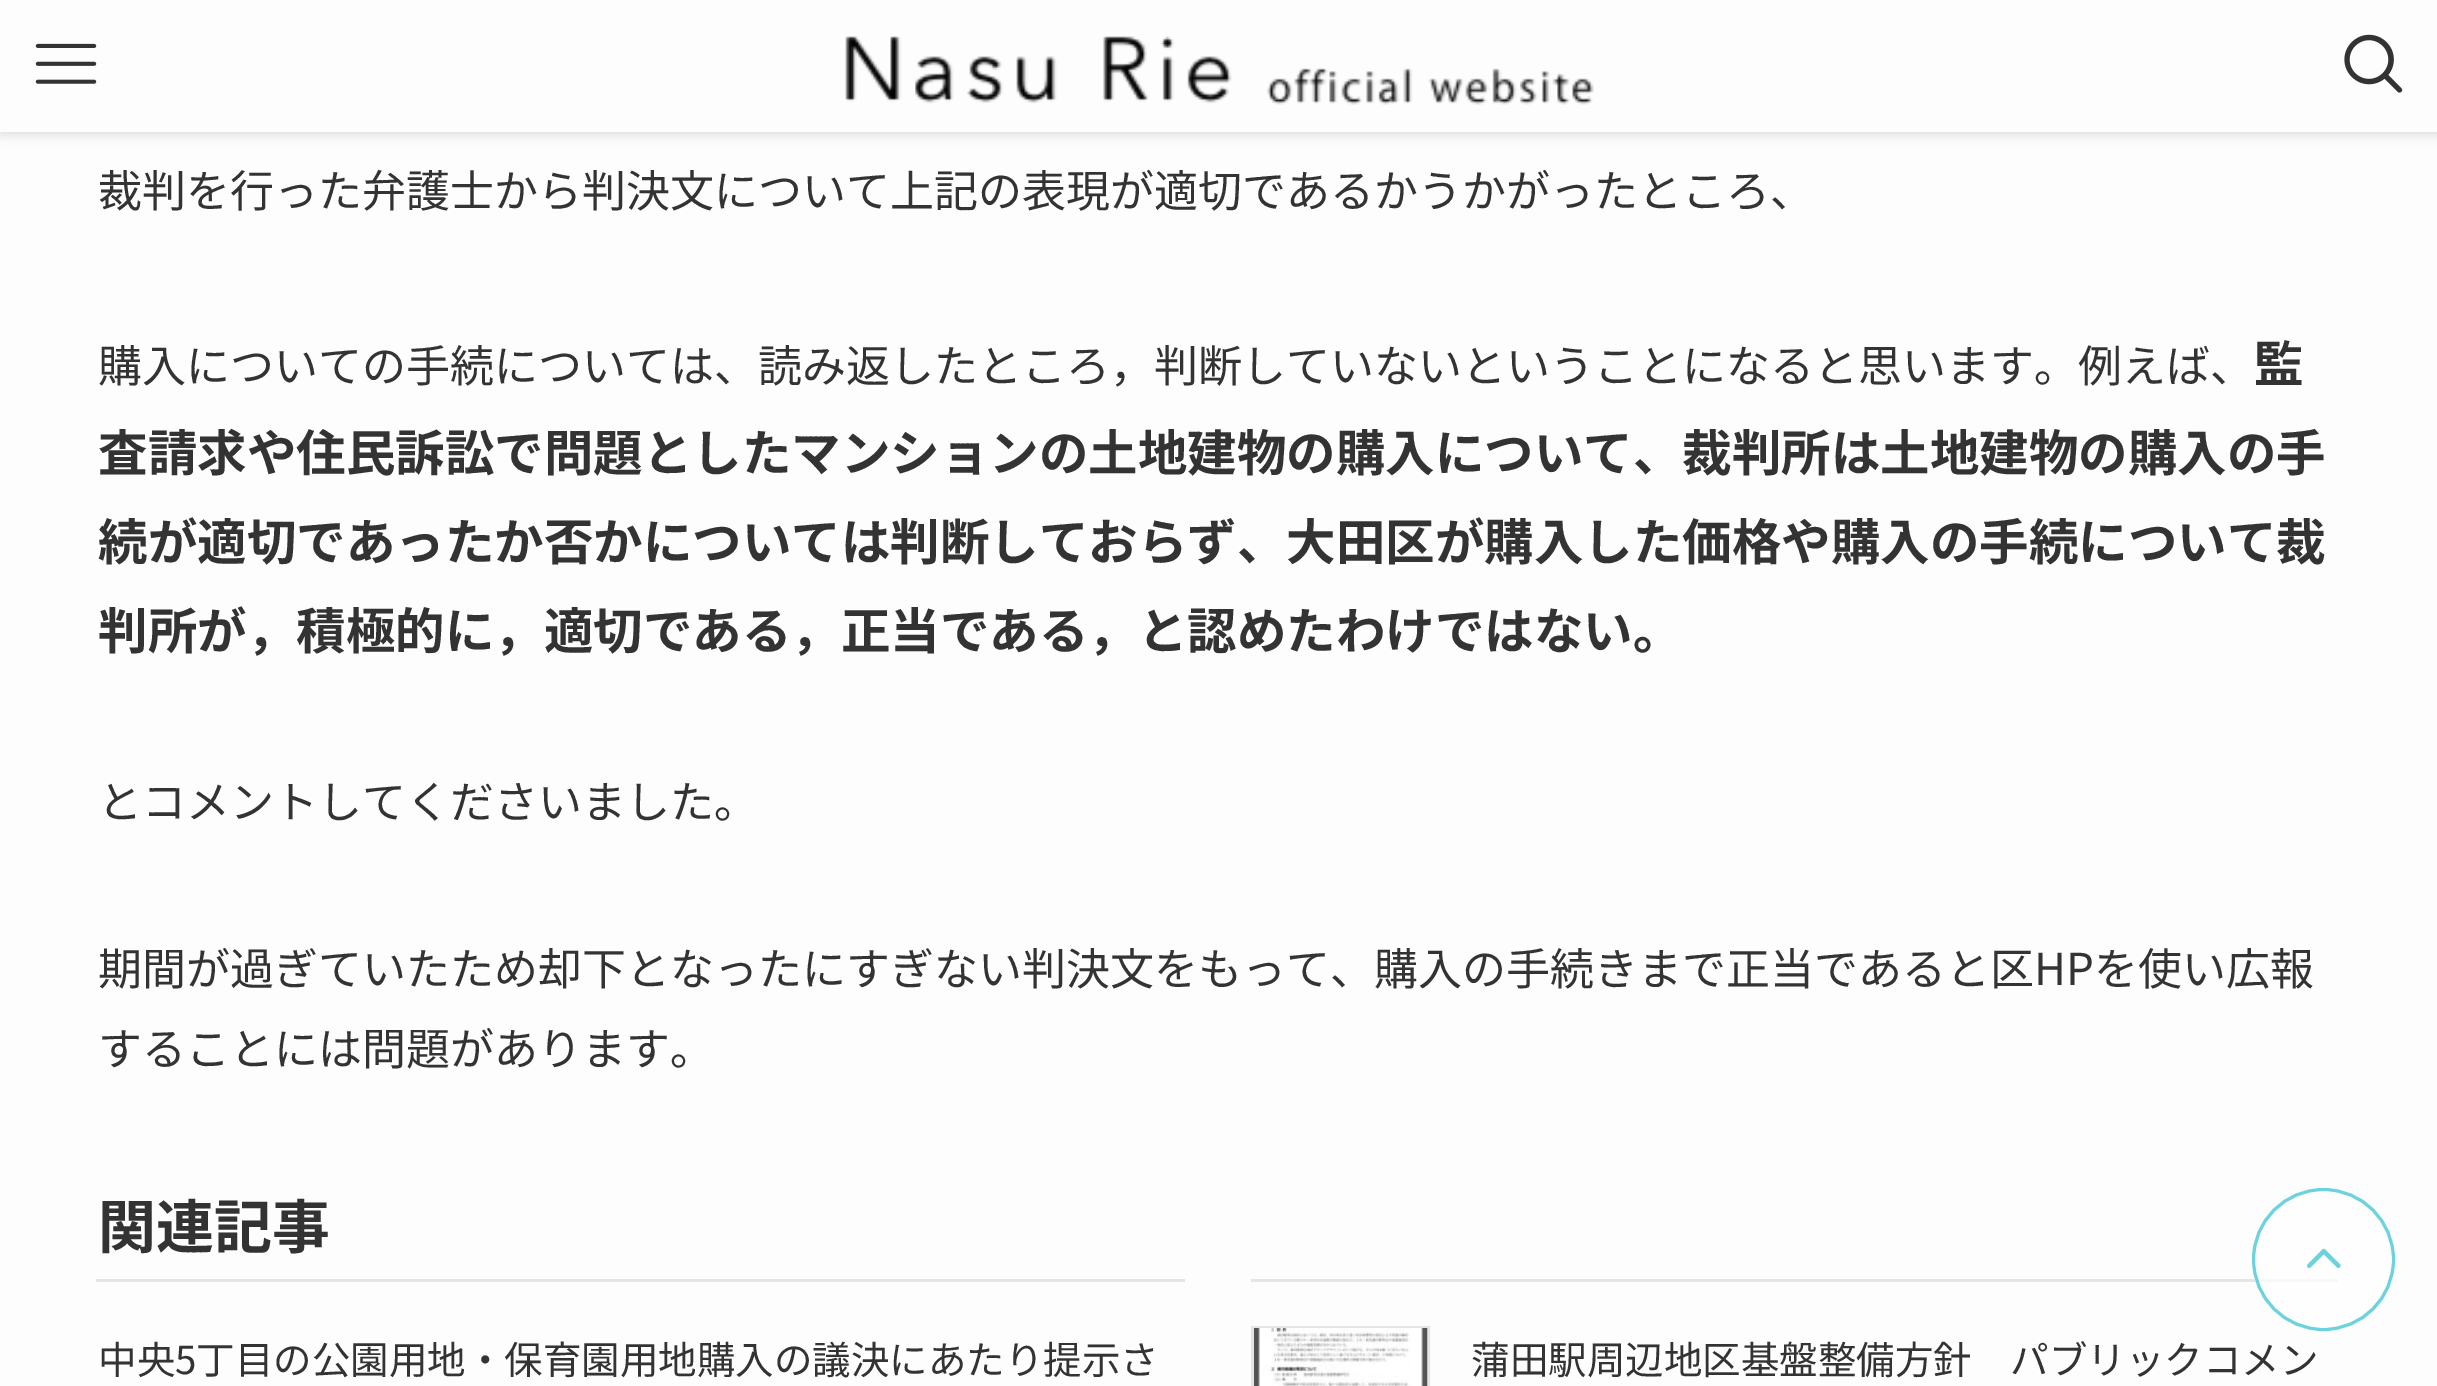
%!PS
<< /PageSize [2437 1386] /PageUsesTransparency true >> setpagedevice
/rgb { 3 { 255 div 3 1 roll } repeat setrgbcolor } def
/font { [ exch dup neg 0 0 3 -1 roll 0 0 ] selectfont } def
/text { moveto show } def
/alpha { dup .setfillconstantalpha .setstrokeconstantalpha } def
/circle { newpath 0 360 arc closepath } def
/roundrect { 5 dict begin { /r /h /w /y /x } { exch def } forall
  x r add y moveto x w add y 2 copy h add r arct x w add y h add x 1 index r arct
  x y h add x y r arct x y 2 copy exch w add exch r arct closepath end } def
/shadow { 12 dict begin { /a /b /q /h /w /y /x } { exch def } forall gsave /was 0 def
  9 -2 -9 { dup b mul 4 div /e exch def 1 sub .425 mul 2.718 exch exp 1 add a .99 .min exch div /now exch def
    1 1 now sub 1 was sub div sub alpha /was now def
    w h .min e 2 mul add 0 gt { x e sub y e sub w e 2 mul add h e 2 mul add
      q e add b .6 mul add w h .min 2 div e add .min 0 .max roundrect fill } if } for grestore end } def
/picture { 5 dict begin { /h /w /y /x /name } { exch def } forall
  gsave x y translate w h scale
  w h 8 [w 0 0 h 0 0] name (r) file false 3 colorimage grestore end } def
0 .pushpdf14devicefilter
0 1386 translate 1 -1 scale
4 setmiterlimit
253 253 253 rgb
0 0 2437 1386 rectfill
0 0 0 rgb
0 3 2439 132 0 5.5 0.12 shadow
253 253 253 rgb
0 0 2437 132 rectfill
(img_01.rgb) 35 43 62 41 picture
(img_02.rgb) 845 36 749 69 picture
(img_03.rgb) 2344 34 59 59 picture
229 229 229 rgb
96 1279 1089 3 rectfill
1251 1279 1087 3 rectfill
3 setlinewidth
1252.5 1327.5 176 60 rectstroke
(img_04.rgb) 1254 1328 174 58 picture
0.75 alpha
255 255 255 rgb
2323.5 1259.5 71.5 circle fill
59 196 211 rgb
2323.5 1259.5 70 circle stroke
1 alpha
(img_05.rgb) 2306 1248 35 21 picture
/NotoSansJP-Regular 44 font
51 51 51 rgb
(裁判を行った弁護士から判決文について上記の表現が適切であるかうかがったところ、) 98 207 text
(購入についての手続については、読み返したところ，判断していないということになると思います。例えば、) 98 382 text
/NotoSansJP-Bold 49.5 font
(監) 2254 382 text
(査請求や住民訴訟で問題としたマンションの土地建物の購入について、裁判所は土地建物の購入の手) 98 471 text
(続が適切であったか否かについては判断しておらず、大田区が購入した価格や購入の手続について裁) 98 560 text
(判所が，積極的に，適切である，正当である，と認めたわけではない。) 98 649 text
/NotoSansJP-Regular 44 font
(とコメントしてくださいました。) 98 818 text
(期間が過ぎていたため却下となったにすぎない判決文をもって、購入の手続きまで正当であると区HPを使い広報) 98 985 text
(することには問題があります。) 98 1065 text
/NotoSansJP-Bold 58 font
(関連記事) 98 1248 text
/NotoSansJP-Regular 38.5 font
(中央5丁目の公園用地・保育園用地購入の議決にあたり提示さ) 98 1374 text
(蒲田駅周辺地区基盤整備方針　パブリックコメン) 1471 1374 text
.poppdf14devicefilter showpage
